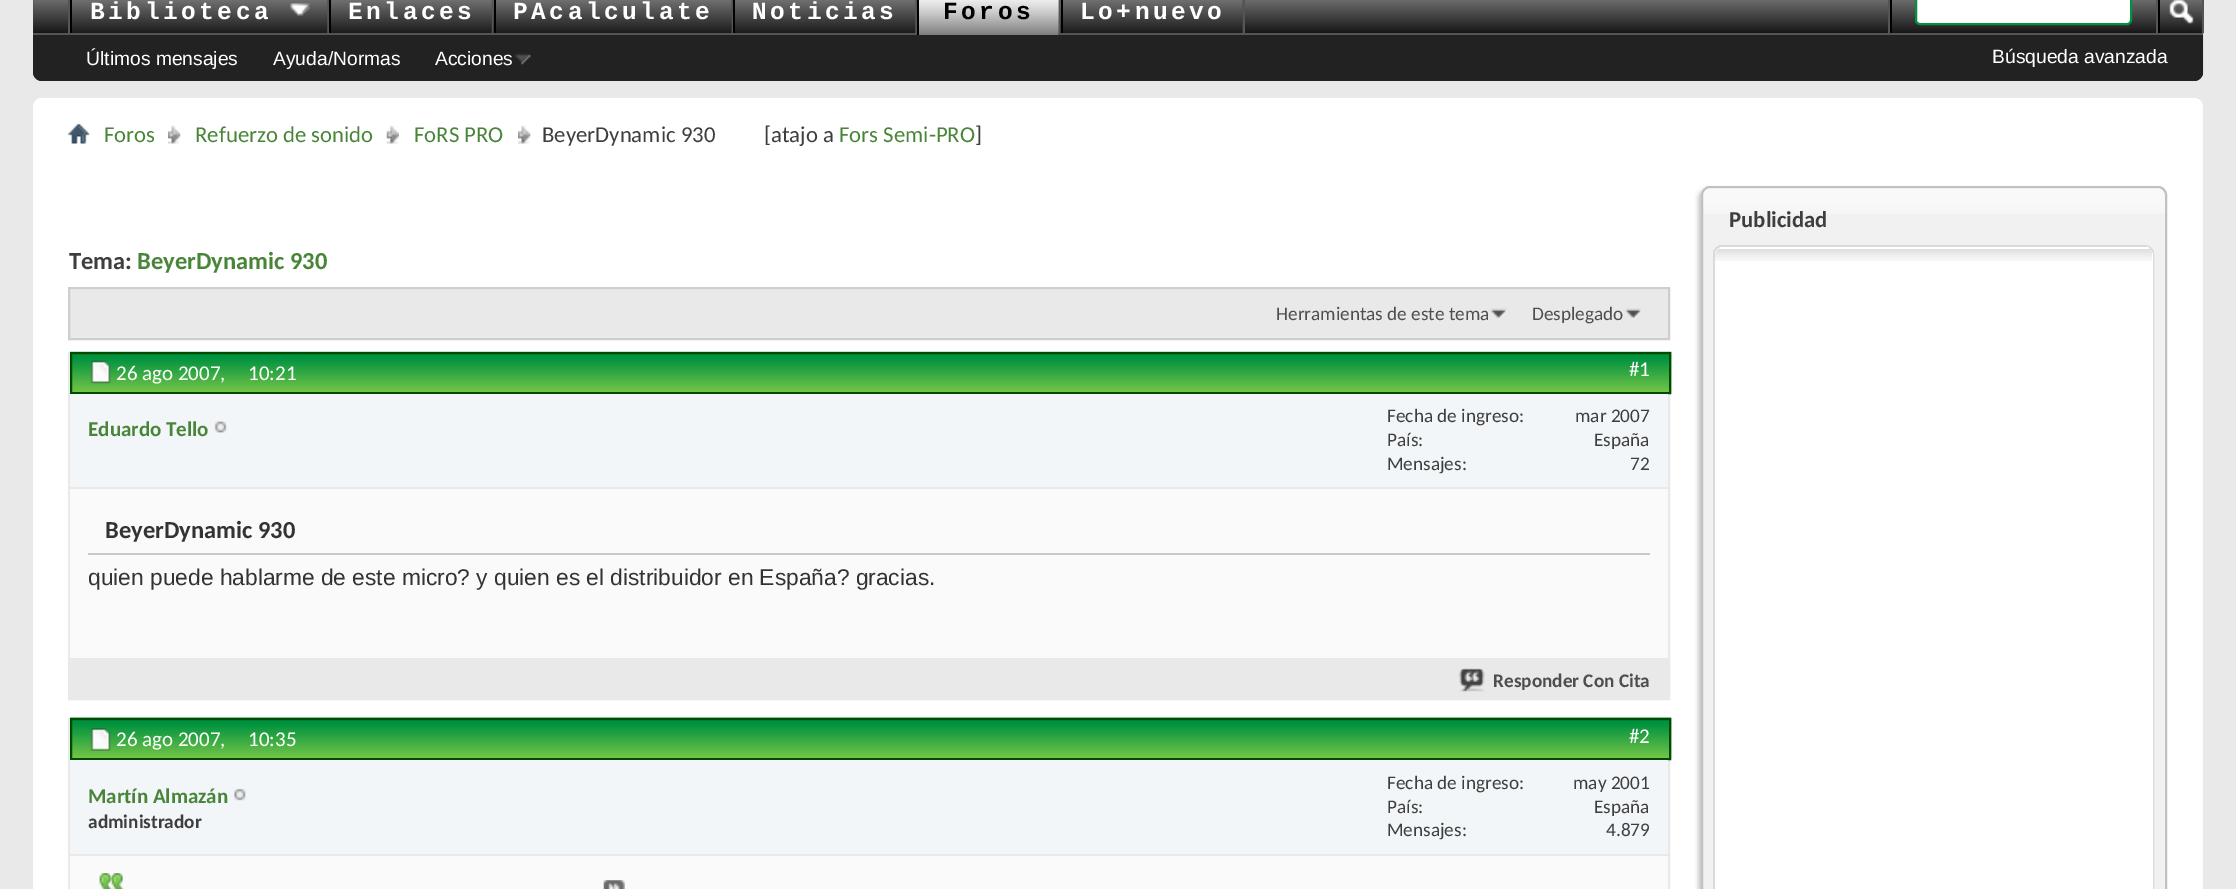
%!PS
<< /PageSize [2236 889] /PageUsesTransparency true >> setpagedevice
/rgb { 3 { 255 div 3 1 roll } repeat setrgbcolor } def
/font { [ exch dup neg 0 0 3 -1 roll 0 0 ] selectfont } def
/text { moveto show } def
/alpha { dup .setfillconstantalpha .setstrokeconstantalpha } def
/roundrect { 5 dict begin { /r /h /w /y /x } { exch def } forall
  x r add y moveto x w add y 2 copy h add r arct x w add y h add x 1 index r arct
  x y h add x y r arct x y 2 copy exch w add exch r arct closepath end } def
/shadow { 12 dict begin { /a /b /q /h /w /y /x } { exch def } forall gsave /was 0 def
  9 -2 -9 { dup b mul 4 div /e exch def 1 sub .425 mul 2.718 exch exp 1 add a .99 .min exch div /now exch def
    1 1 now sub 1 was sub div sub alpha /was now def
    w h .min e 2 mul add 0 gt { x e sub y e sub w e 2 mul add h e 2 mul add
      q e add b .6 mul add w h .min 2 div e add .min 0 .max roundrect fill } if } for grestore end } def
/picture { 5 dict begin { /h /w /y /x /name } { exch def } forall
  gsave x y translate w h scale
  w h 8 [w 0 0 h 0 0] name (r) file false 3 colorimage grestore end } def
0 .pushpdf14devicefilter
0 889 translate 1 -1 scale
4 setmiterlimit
233 233 233 rgb
0 0 2236 889 rectfill
(img_01.rgb) 33 33 2171 48 picture
34 34 34 rgb
33 -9 moveto 2170 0 rlineto 0 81 rlineto 0 5 -4 9 -9 9 rcurveto -2152 0 rlineto -5 0 -9 -4 -9 -9 rcurveto closepath fill
(img_02.rgb) 33 0 2171 34 picture
85 85 85 rgb
327 0 2 35 rectfill
68 0 2 35 rectfill
(img_03.rgb) 72 0 256 33 picture
0 0 0 rgb
70 0 2 35 rectfill
(img_04.rgb) 290 3 20 13 picture
85 85 85 rgb
492 0 2 35 rectfill
(img_05.rgb) 331 0 161 33 picture
0 0 0 rgb
329 0 2 35 rectfill
85 85 85 rgb
732 0 1 35 rectfill
73 73 73 rgb
731 0 1 33 rectfill
(img_06.rgb) 493 0 239 33 picture
0 0 0 rgb
494 0 2 35 rectfill
85 85 85 rgb
915 0 2 35 rectfill
(img_07.rgb) 735 0 181 33 picture
0 0 0 rgb
733 0 2 35 rectfill
85 85 85 rgb
1059 0 2 33 rectfill
1243 0 2 35 rectfill
73 73 73 rgb
1242 0 1 33 rectfill
(img_10.rgb) 1060 0 183 33 picture
0 0 0 rgb
1061 0 2 35 rectfill
85 85 85 rgb
33 33 2170 2 rectfill
0 0 0 rgb
917 0 142 35 rectfill
(img_08.rgb) 919 0 140 35 picture
(img_09.rgb) 514 53 17 12 picture
85 85 85 rgb
1888 0 2 33 rectfill
0 0 0 rgb
1890 0 2 33 rectfill
255 255 255 rgb
1916 -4 215 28 4 roundrect gsave fill grestore
0 146 63 rgb
2 setlinewidth
stroke
85 85 85 rgb
2202 0 2 33 rectfill
2156 0 2 33 rectfill
0 0 0 rgb
2158 0 2 33 rectfill
(img_11.rgb) 2169 0 25 25 picture
255 255 255 rgb
33 98 2170 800 9 roundrect fill
(img_12.rgb) 68 123 22 21 picture
(img_13.rgb) 168 125 13 19 picture
(img_14.rgb) 386 125 13 19 picture
(img_15.rgb) 518 125 13 19 picture
200 200 200 rgb
1698 189 465 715 9 2 1 shadow
241 241 241 rgb
1701 186 466 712 9 roundrect fill
(img_16.rgb) 1701 187 465 27 picture
193 193 193 rgb
1702 187 464 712 8 roundrect stroke
255 255 255 rgb
1714 246 439 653 8 roundrect gsave fill grestore
218 218 218 rgb
stroke
255 255 255 rgb
1715 247 438 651 9 roundrect fill
(img_17.rgb) 1715 248 437 13 picture
1720 247 429 2 rectfill
233 233 233 rgb
70 290 1598 48 rectfill
237 237 237 rgb
69 289 1600 1 rectfill
206 206 206 rgb
69 288 1600 51 rectstroke
(img_18.rgb) 1490 308 17 12 picture
(img_19.rgb) 1625 308 17 12 picture
233 233 233 rgb
69 353 1600 346 rectstroke
(img_20.rgb) 70 351 1602 43 picture
0 75 0 rgb
71 353 1599 40 rectstroke
(img_21.rgb) 90 360 21 24 picture
242 246 248 rgb
70 394 1598 93 rectfill
233 233 233 rgb
70 487 1598 2 rectfill
(img_22.rgb) 214 421 13 12 picture
250 250 250 rgb
70 489 1598 169 rectfill
200 200 200 rgb
88 553 1562 2 rectfill
233 233 233 rgb
70 658 1598 40 rectfill
(img_23.rgb) 1459 668 26 24 picture
69 719 1600 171 rectstroke
(img_24.rgb) 70 717 1602 43 picture
0 75 0 rgb
71 719 1599 40 rectstroke
(img_25.rgb) 90 728 21 23 picture
242 246 248 rgb
70 760 1598 94 rectfill
233 233 233 rgb
70 854 1598 2 rectfill
(img_26.rgb) 234 788 12 13 picture
250 250 250 rgb
70 856 1598 33 rectfill
(img_27.rgb) 98 873 28 16 picture
(img_28.rgb) 603 880 22 9 picture
/LiberationMono-Bold 24.5 font
255 255 255 rgb
90 19 moveto 3.5 0 (Biblioteca) ashow
348 19 moveto 3.5 0 (Enlaces) ashow
513 19 moveto 3.5 0 (PAcalculate) ashow
752 19 moveto 3.5 0 (Noticias) ashow
0 0 0 rgb
943 19 moveto 3.5 0 (Foros) ashow
/LiberationSans-Regular 19.25 font
255 255 255 rgb
(Últimos mensajes) 86 65 text
(Ayuda/Normas) 273 65 text
(Acciones) 435 65 text
/LiberationMono-Bold 24.5 font
1080 19 moveto 3.5 0 (Lo+nuevo) ashow
/LiberationSans-Regular 19.25 font
(Búsqueda avanzada) 1992 63 text
/Carlito-Regular 22.75 font
72 133 57 rgb
(Foros) 104 142 text
(Refuerzo de sonido) 195 142 text
(FoRS PRO) 414 142 text
62 62 62 rgb
(BeyerDynamic 930) 542 142 text
([atajo a) 764 142 text
72 133 57 rgb
(Fors Semi-PRO) 839 142 text
62 62 62 rgb
(]) 975 142 text
/Carlito-Bold 22.75 font
(Publicidad) 1729 227 text
/Carlito-Bold 24.5 font
(Tema:) 69 269 text
72 133 57 rgb
(BeyerDynamic 930) 137 269 text
/Carlito-Regular 19.25 font
78 78 78 rgb
(Herramientas de este tema) 1276 320 text
(Desplegado) 1532 320 text
/Carlito-Regular 21 font
255 255 255 rgb
(26 ago 2007,) 116 380 text
(10:21) 248 380 text
(#1) 1629 376 text
/Carlito-Bold 21 font
72 133 57 rgb
(Eduardo Tello) 88 436 text
/Carlito-Regular 19.25 font
62 62 62 rgb
(Fecha de ingreso:) 1387 422 text
(mar 2007) 1575 422 text
(País:) 1387 446 text
(España) 1594 446 text
(Mensajes:) 1387 470 text
(72) 1630 470 text
/Carlito-Bold 24.5 font
51 51 51 rgb
(BeyerDynamic 930) 105 538 text
/LiberationSans-Regular 22.75 font
(quien puede hablarme de este micro? y quien es el distribuidor en España? gracias.) 88 585 text
/Carlito-Bold 19.25 font
78 78 78 rgb
(Responder Con Cita) 1493 687 text
/Carlito-Regular 21 font
255 255 255 rgb
(26 ago 2007,) 116 746 text
(10:35) 248 746 text
(#2) 1629 743 text
/Carlito-Bold 21 font
72 133 57 rgb
(Martín Almazán) 88 803 text
/Carlito-Bold 19.25 font
62 62 62 rgb
(administrador) 88 828 text
/Carlito-Regular 19.25 font
(Fecha de ingreso:) 1387 789 text
(may 2001) 1573 789 text
(País:) 1387 813 text
(España) 1594 813 text
(Mensajes:) 1387 836 text
(4.879) 1606 836 text
.poppdf14devicefilter showpage
